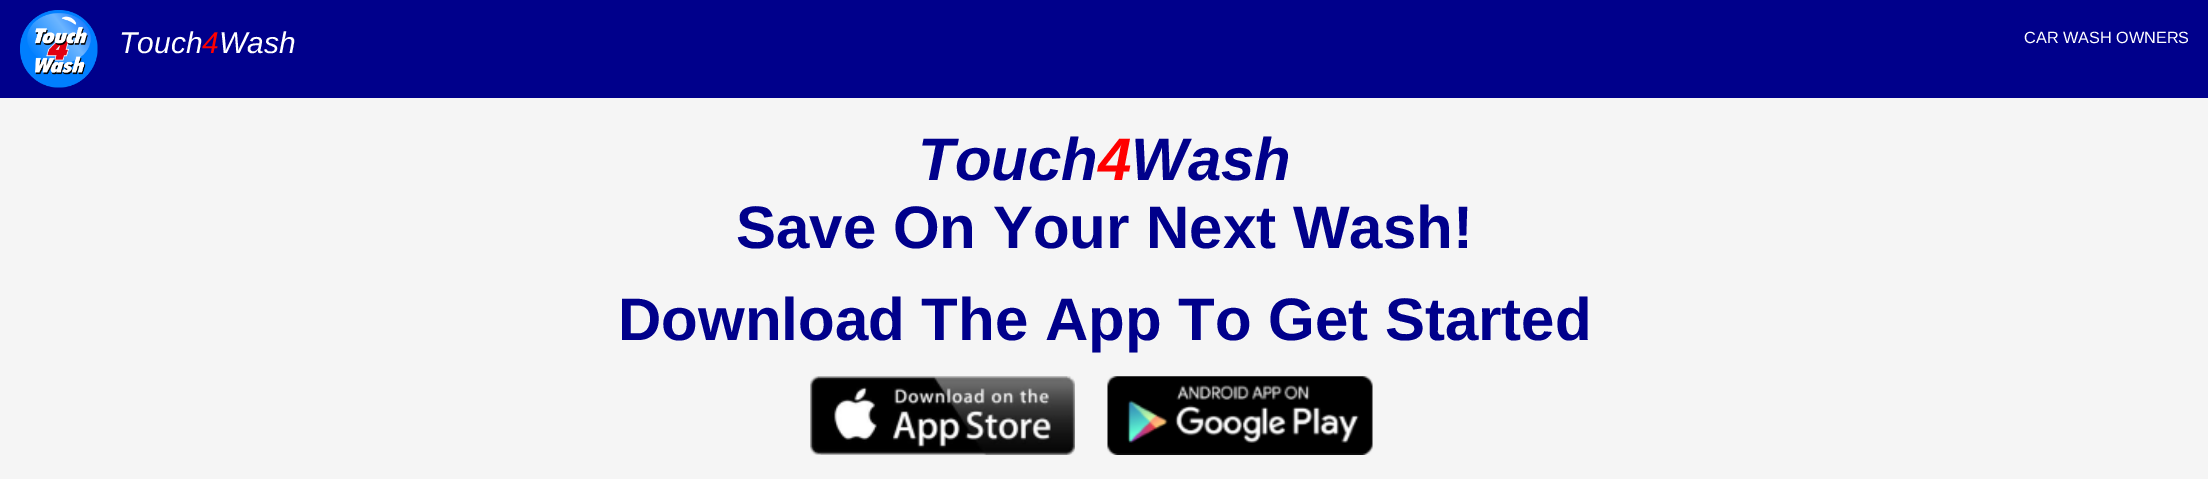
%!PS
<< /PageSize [2208 479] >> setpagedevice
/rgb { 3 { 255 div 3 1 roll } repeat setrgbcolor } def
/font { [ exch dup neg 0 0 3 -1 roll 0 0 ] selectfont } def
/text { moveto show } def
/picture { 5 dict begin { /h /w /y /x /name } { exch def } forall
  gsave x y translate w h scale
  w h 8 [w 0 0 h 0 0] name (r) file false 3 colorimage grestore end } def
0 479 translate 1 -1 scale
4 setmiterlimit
245 245 245 rgb
0 0 2208 479 rectfill
0 0 139 rgb
0 0 2208 98 rectfill
(img_01.rgb) 20 10 78 78 picture
(img_02.rgb) 810 376 265 79 picture
(img_03.rgb) 1107 376 266 79 picture
/LiberationSans-Italic 30 font
255 255 255 rgb
(Touch) 119 53 text
255 0 0 rgb
(4) 202 53 text
255 255 255 rgb
(Wash) 219 53 text
/LiberationSans-Regular 16.25 font
(CAR WASH OWNERS) 2024 43 text
/LiberationSans-BoldItalic 60 font
0 0 139 rgb
(Touch) 918 180 text
255 0 0 rgb
(4) 1098 180 text
0 0 139 rgb
(Wash) 1131 180 text
/LiberationSans-Bold 60 font
(Save On Your Next Wash!) 736 248 text
(Download The App To Get Started) 618 340 text
showpage
